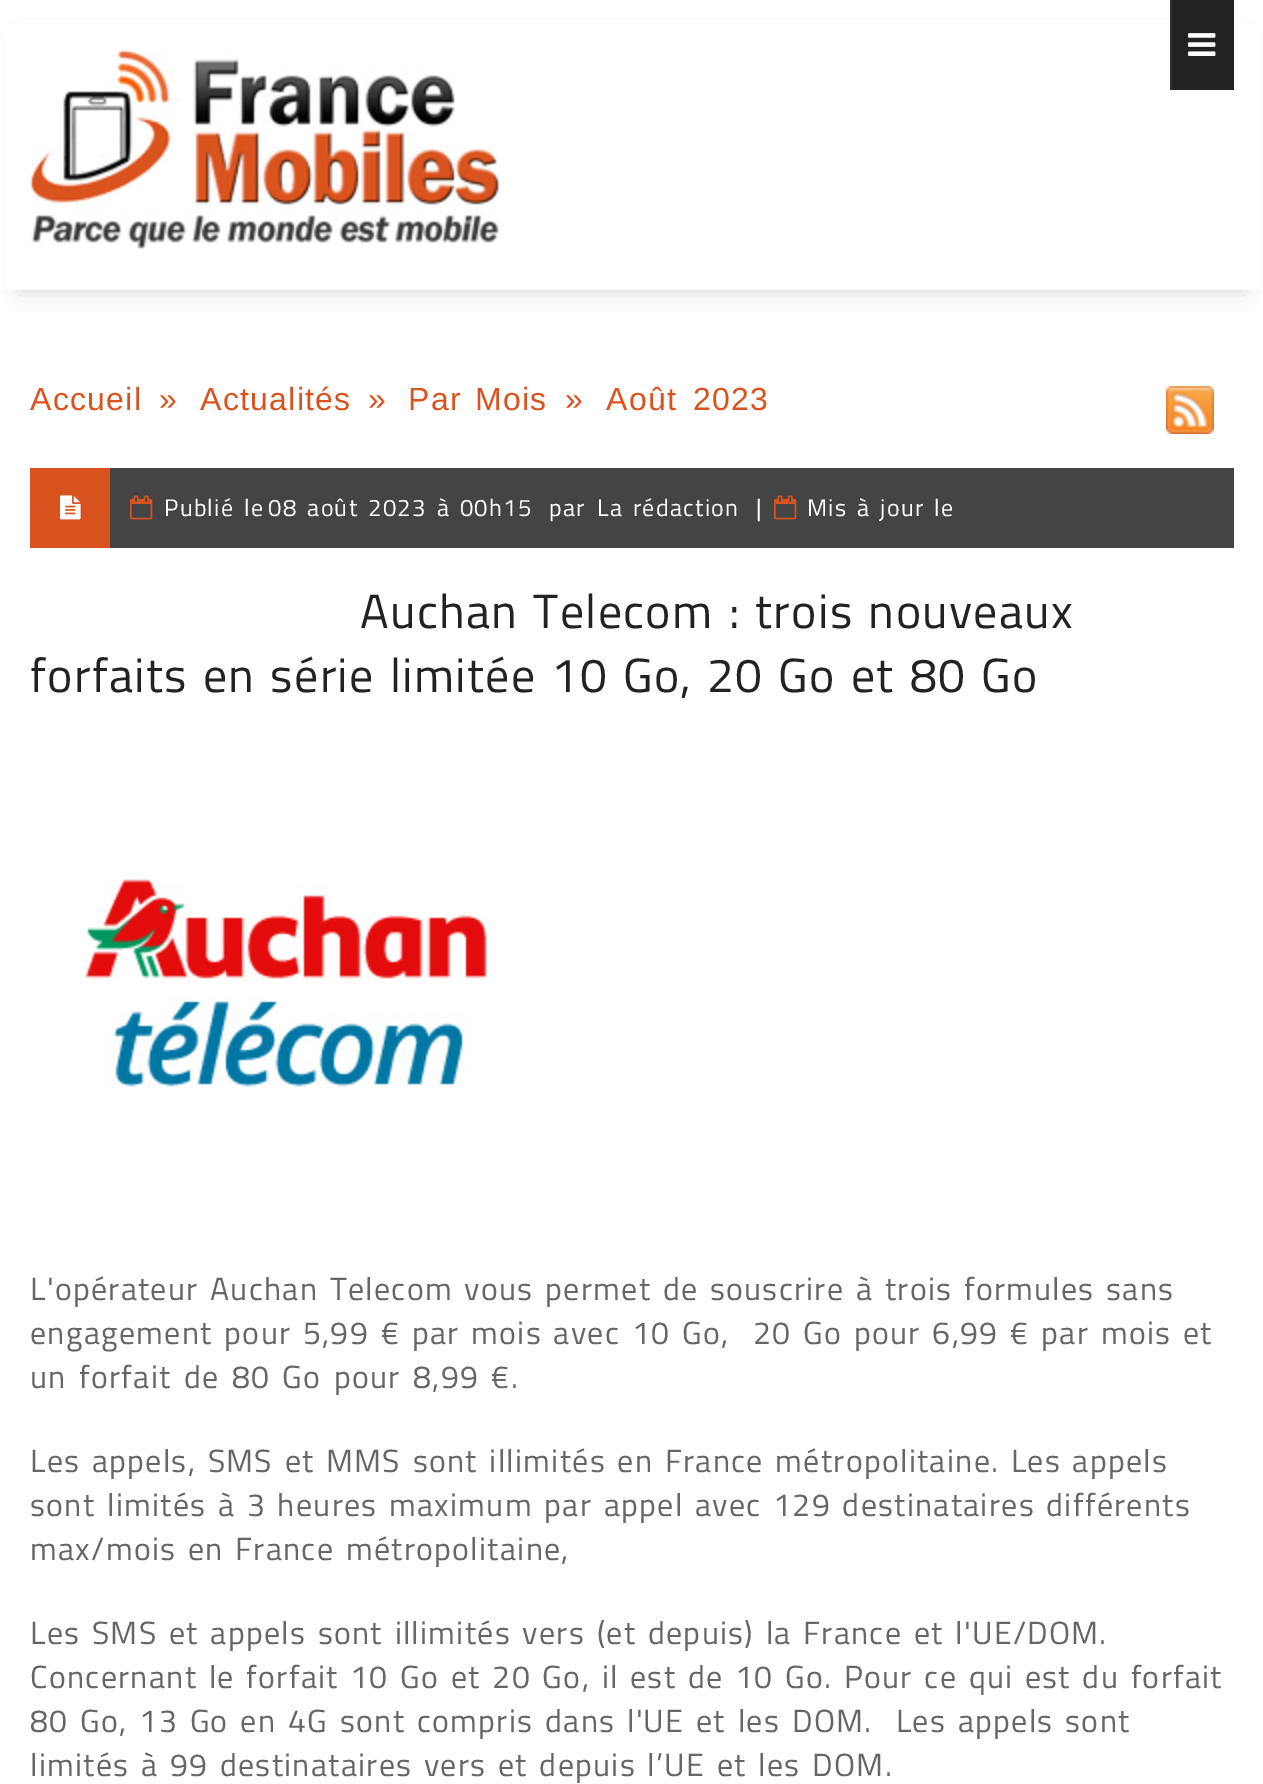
%!PS
<< /PageSize [1263 1784] /PageUsesTransparency true >> setpagedevice
/rgb { 3 { 255 div 3 1 roll } repeat setrgbcolor } def
/font { [ exch dup neg 0 0 3 -1 roll 0 0 ] selectfont } def
/alpha { dup .setfillconstantalpha .setstrokeconstantalpha } def
/roundrect { 5 dict begin { /r /h /w /y /x } { exch def } forall
  x r add y moveto x w add y 2 copy h add r arct x w add y h add x 1 index r arct
  x y h add x y r arct x y 2 copy exch w add exch r arct closepath end } def
/shadow { 12 dict begin { /a /b /q /h /w /y /x } { exch def } forall gsave /was 0 def
  9 -2 -9 { dup b mul 4 div /e exch def 1 sub .425 mul 2.718 exch exp 1 add a .99 .min exch div /now exch def
    1 1 now sub 1 was sub div sub alpha /was now def
    w h .min e 2 mul add 0 gt { x e sub y e sub w e 2 mul add h e 2 mul add
      q e add b .6 mul add w h .min 2 div e add .min 0 .max roundrect fill } if } for grestore end } def
/picture { 5 dict begin { /h /w /y /x /name } { exch def } forall
  gsave x y translate w h scale
  w h 8 [w 0 0 h 0 0] name (r) file false 3 colorimage grestore end } def
0 .pushpdf14devicefilter
0 1784 translate 1 -1 scale
4 setmiterlimit
255 255 255 rgb
0 0 1263 1784 rectfill
34 34 34 rgb
20 40 1224 250 0 10 0.2 shadow
255 255 255 rgb
4 24 1256 266 rectfill
34 34 34 rgb
1172 0 62 90 rectfill
51 51 51 rgb
1170 0 2 90 rectfill
(img_01.rgb) 1188 33 28 23 picture
(img_02.rgb) 30 50 470 199 picture
(img_03.rgb) 1166 386 48 48 picture
68 68 68 rgb
110 468 1124 80 rectfill
217 83 31 rgb
30 468 80 80 rectfill
(img_04.rgb) 60 495 21 25 picture
(img_05.rgb) 130 495 23 25 picture
(img_05.rgb) 774 495 23 25 picture
(img_06.rgb) 85 879 402 209 picture
/LiberationSans-Regular 32 font
30 410 moveto 1.28 0 (Accueil) ashow
159 410 moveto 1.28 0 (») ashow
200 410 moveto 1.28 0 (Actualités) ashow
368 410 moveto 1.28 0 (») ashow
408 410 moveto 3.25 0 32 1.28 0 (Par Mois) awidthshow
565 410 moveto 1.28 0 (») ashow
606 410 moveto 1.28 0 (Août) ashow
693 410 moveto 1.28 0 (2023) ashow
/TitilliumWeb-Regular 24 font
255 255 255 rgb
164 516 moveto 3.25 0 32 1.28 0 (Publié le) awidthshow
268 516 moveto 3.25 0 32 1.28 0 (08 août 2023 à 00h15) awidthshow
549 516 moveto 1.28 0 (par) ashow
597 516 moveto 3.25 0 32 1.28 0 (La rédaction) awidthshow
756 516 moveto 1.28 0 (|) ashow
807 516 moveto 3.25 0 32 1.28 0 (Mis à jour le) awidthshow
/TitilliumWeb-Regular 48 font
34 34 34 rgb
360 628 moveto 3.25 0 32 1.28 0 (Auchan Telecom : trois nouveaux) awidthshow
30 692 moveto 3.25 0 32 1.28 0 (forfaits en série limitée 10 Go, 20) awidthshow
778 692 moveto 3.25 0 32 1.28 0 (Go et) awidthshow
910 692 moveto 3.25 0 32 1.28 0 (80 Go) awidthshow
/TitilliumWeb-Regular 32 font
102 102 102 rgb
30 1300 moveto 3.25 0 32 1.28 0 (L'opérateur Auchan Telecom vous permet de souscrire à trois formules sans) awidthshow
30 1344 moveto 3.4 0 32 1.28 0 (engagement pour 5,99 € par mois avec 10 Go,  20 Go pour 6,99 € par mois et) awidthshow
30 1388 moveto 4 0 32 1.28 0 (un forfait de 80 Go pour 8,99 €.) awidthshow
30 1472 moveto 3.25 0 32 1.28 0 (Les appels, SMS et MMS sont illimités en France métropolitaine. Les appels) awidthshow
30 1516 moveto 3.25 0 32 1.28 0 (sont limités à 3 heures maximum par appel avec 129 destinataires différents) awidthshow
30 1560 moveto 3.25 0 32 1.28 0 (max/mois en France métropolitaine,) awidthshow
30 1644 moveto 3.25 0 32 1.28 0 (Les SMS et appels sont illimités vers \(et depuis\) la France et l'UE/DOM.) awidthshow
30 1688 moveto 3.25 0 32 1.28 0 (Concernant le forfait 10 Go et 20 Go, il est de 10 Go. Pour ce qui est du forfait) awidthshow
30 1732 moveto 3.4 0 32 1.28 0 (80 Go, 13 Go en 4G sont compris dans l'UE et les DOM.  Les appels sont) awidthshow
30 1776 moveto 3.25 0 32 1.28 0 (limités à 99 destinataires vers et depuis l’UE et les DOM.) awidthshow
.poppdf14devicefilter showpage
